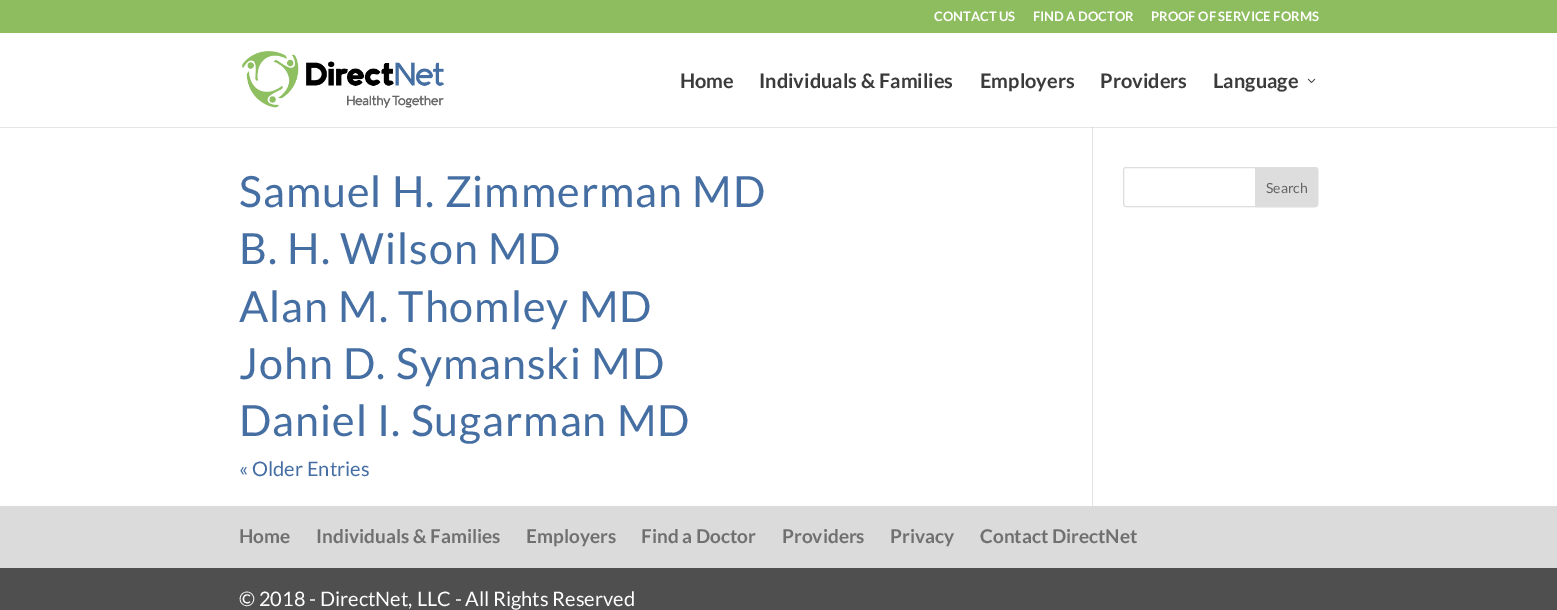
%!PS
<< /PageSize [1557 610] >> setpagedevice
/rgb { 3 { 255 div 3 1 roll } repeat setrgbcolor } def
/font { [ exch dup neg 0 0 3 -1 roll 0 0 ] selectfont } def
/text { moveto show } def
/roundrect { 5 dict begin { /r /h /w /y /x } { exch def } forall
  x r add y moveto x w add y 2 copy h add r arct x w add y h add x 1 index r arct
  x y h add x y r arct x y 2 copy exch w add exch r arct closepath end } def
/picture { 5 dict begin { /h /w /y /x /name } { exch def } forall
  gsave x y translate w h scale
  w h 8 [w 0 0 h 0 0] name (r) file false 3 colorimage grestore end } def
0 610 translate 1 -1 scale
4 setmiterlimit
255 255 255 rgb
0 0 1557 610 rectfill
230 230 230 rgb
0 127 1557 1 rectfill
142 189 96 rgb
0 0 1557 33 rectfill
(img_01.rgb) 242 51 202 57 picture
(img_02.rgb) 1307 78 9 5 picture
226 226 226 rgb
1092 128 1 378 rectfill
203 203 203 rgb
1092 127 1 1 rectfill
221 221 221 rgb
1123.5 167.5 194 39 2.5 roundrect stroke
1255.5 167.5 moveto 59.5 0 rlineto 1.5 0 2.5 1 2.5 2.5 rcurveto 0 34 rlineto 0 1.5 -1 2.5 -2.5 2.5 rcurveto -59.5 0 rlineto closepath gsave fill grestore
stroke
219 219 219 rgb
0 506 1557 62 rectfill
79 79 79 rgb
0 568 1557 42 rectfill
/Lato-Bold 13 font
255 255 255 rgb
(CONTACT US) 934 21 text
(FIND A DOCTOR) 1033 21 text
(PROOF OF SERVICE FORMS) 1151 21 text
/Lato-Bold 20 font
59 59 59 rgb
(Home) 680 88 text
(Individuals & Families) 759 88 text
(Employers) 980 88 text
(Providers) 1100 88 text
(Language) 1213 88 text
/Lato-Regular 43 font
69 110 163 rgb
239 207 moveto 1 0 (Samuel H. Zimmerman MD) ashow
239 264 moveto 1 0 (B. H. Wilson MD) ashow
239 322 moveto 1 0 (Alan M. Thomley MD) ashow
239 379 moveto 1 0 (John D. Symanski MD) ashow
239 436 moveto 1 0 (Daniel I. Sugarman MD) ashow
/Lato-Regular 20 font
(« Older Entries) 239 476 text
/Lato-Regular 14 font
102 102 102 rgb
(Search) 1266 193 text
/Lato-Bold 19 font
112 112 112 rgb
(Home) 239 543 text
(Individuals & Families) 316 543 text
(Employers) 526 543 text
(Find a Doctor) 641 543 text
(Providers) 782 543 text
(Privacy) 890 543 text
(Contact DirectNet) 980 543 text
/Lato-Regular 20 font
255 255 255 rgb
(© 2018 - DirectNet, LLC - All Rights Reserved) 239 606 text
showpage
